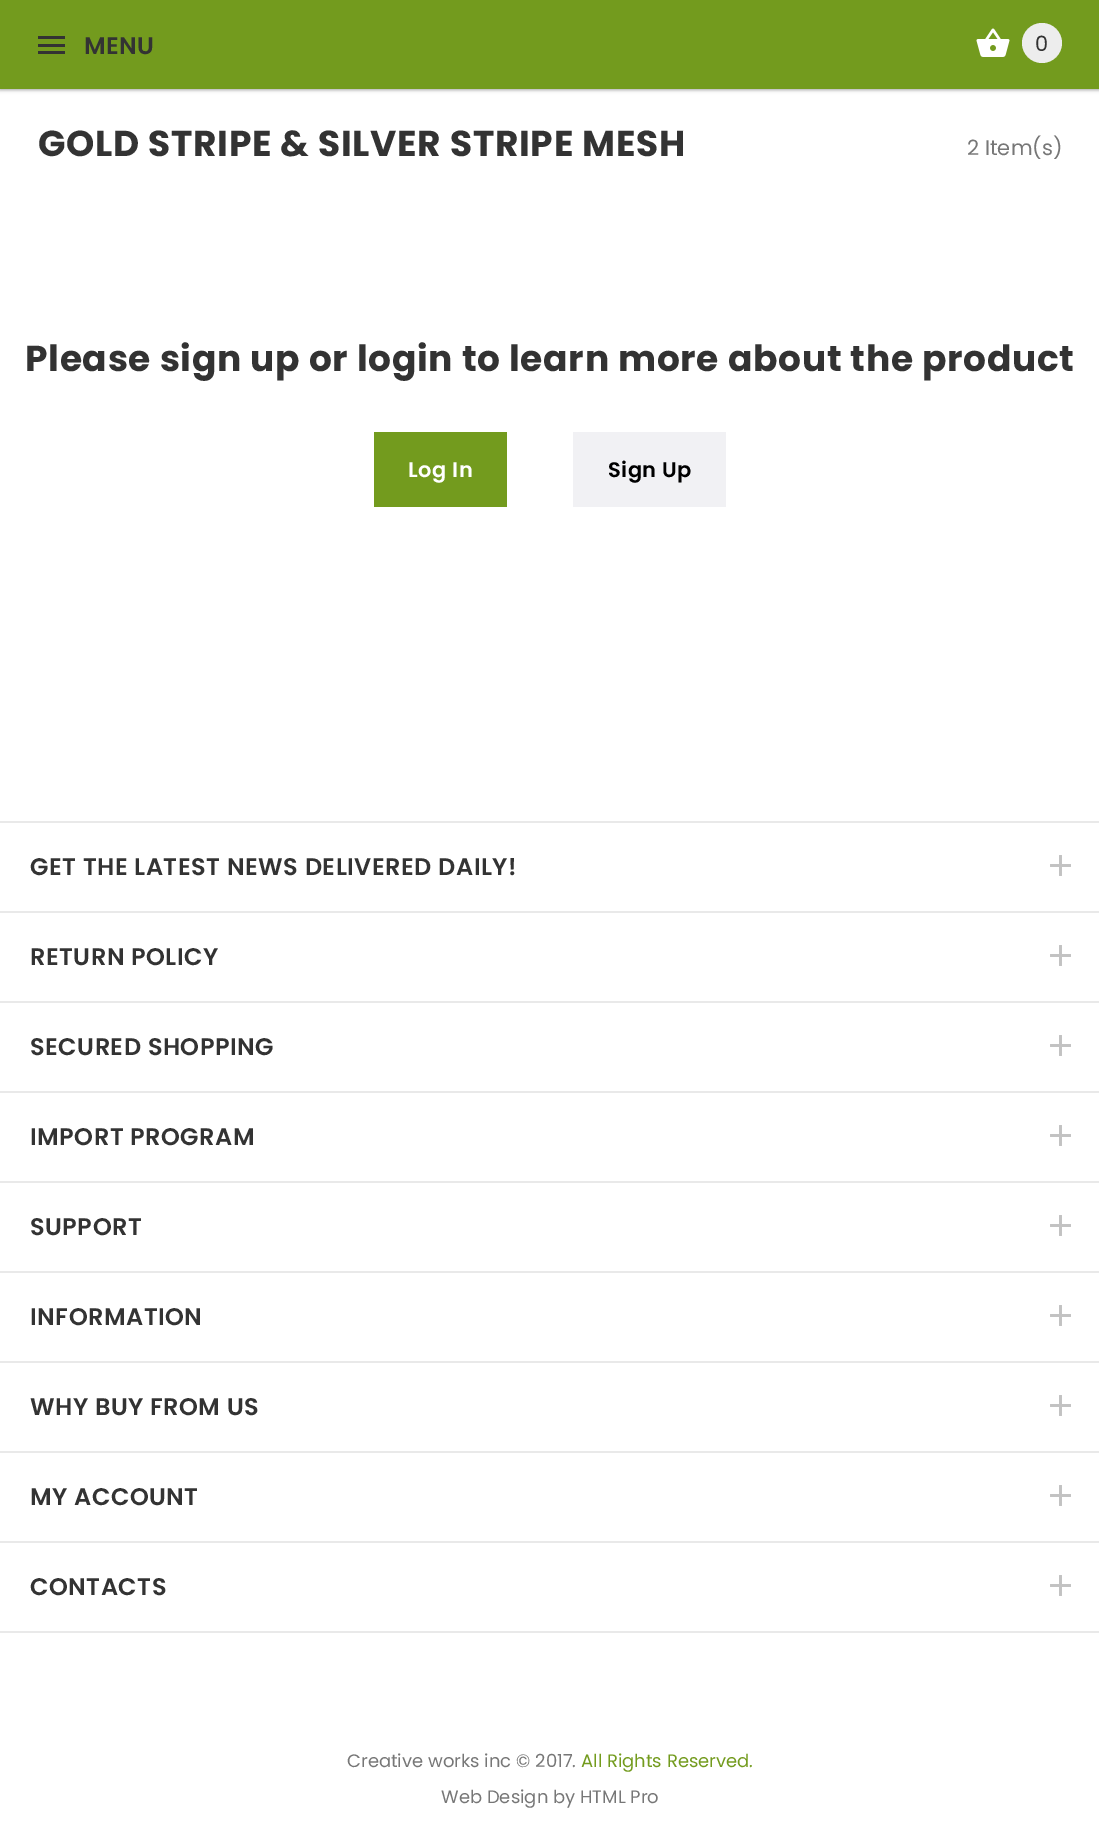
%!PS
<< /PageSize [1099 1824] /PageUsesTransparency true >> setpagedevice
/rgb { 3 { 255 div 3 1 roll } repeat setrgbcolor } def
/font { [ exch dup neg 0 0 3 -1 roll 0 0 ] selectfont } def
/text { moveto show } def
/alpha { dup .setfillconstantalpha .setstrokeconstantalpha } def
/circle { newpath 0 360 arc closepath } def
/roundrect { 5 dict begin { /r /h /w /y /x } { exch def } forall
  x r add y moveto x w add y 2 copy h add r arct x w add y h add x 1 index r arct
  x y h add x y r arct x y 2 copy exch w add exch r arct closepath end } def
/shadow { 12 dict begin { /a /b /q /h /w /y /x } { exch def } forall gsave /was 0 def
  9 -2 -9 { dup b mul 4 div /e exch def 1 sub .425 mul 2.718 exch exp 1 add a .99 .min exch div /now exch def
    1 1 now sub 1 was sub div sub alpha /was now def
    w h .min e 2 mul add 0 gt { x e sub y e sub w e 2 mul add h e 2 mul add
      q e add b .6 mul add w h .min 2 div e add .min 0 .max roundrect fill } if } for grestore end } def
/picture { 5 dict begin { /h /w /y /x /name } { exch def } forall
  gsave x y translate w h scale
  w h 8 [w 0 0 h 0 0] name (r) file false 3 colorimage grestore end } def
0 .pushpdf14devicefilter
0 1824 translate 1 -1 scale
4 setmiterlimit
255 255 255 rgb
0 0 1099 1824 rectfill
0 0 0 rgb
0 2 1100 88 0 1.5 0.24 shadow
0 2 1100 88 0 2 0.12 shadow
115 155 30 rgb
0 0 1099 89 rectfill
51 51 51 rgb
38 36 27 3 rectfill
38 44 27 3 rectfill
38 51 27 3 rectfill
(img_01.rgb) 976 28 34 29 picture
237 237 237 rgb
1042 43 20 circle fill
115 155 30 rgb
374 432 133 75 rectfill
241 241 244 rgb
573 432 153 75 rectfill
233 233 233 rgb
0 821 1099 2 rectfill
0 911 1099 2 rectfill
(img_02.rgb) 1050 855 21 21 picture
0 1001 1099 2 rectfill
(img_02.rgb) 1050 945 21 21 picture
0 1091 1099 2 rectfill
(img_02.rgb) 1050 1035 21 21 picture
0 1181 1099 2 rectfill
(img_02.rgb) 1050 1125 21 21 picture
0 1271 1099 2 rectfill
(img_02.rgb) 1050 1215 21 21 picture
0 1361 1099 2 rectfill
(img_02.rgb) 1050 1305 21 21 picture
0 1451 1099 2 rectfill
(img_02.rgb) 1050 1395 21 21 picture
0 1541 1099 2 rectfill
(img_02.rgb) 1050 1485 21 21 picture
0 1631 1099 2 rectfill
(img_02.rgb) 1050 1575 21 21 picture
/Poppins-SemiBold 24 font
51 51 51 rgb
84 54 moveto 0.5 0 (MENU) ashow
/Poppins-Regular 21 font
(0) 1035 51 text
/Poppins-Bold 36 font
38 156 moveto 0.72 0 (GOLD STRIPE & SILVER STRIPE MESH) ashow
/Poppins-Regular 21 font
119 119 119 rgb
(2 Item\(s\)) 967 155 text
/Poppins-Bold 36 font
51 51 51 rgb
25 371 moveto 0.72 0 (Please sign up or login to learn more about the product) ashow
/Poppins-SemiBold 21 font
255 255 255 rgb
408 477 moveto 0.5 0 (Log In) ashow
0 0 0 rgb
608 477 moveto 0.5 0 (Sign Up) ashow
/Poppins-SemiBold 24 font
51 51 51 rgb
30 875 moveto 0.5 0 (GET THE LATEST NEWS DELIVERED DAILY!) ashow
30 965 moveto 0.5 0 (RETURN POLICY) ashow
30 1055 moveto 0.5 0 (SECURED SHOPPING) ashow
30 1145 moveto 0.5 0 (IMPORT PROGRAM) ashow
30 1235 moveto 0.5 0 (SUPPORT) ashow
30 1325 moveto 0.5 0 (INFORMATION) ashow
30 1415 moveto 0.5 0 (WHY BUY FROM US) ashow
30 1505 moveto 0.5 0 (MY ACCOUNT) ashow
30 1595 moveto 0.5 0 (CONTACTS) ashow
/Poppins-Regular 18 font
119 119 119 rgb
(Creative works inc © 2017.) 347 1767 text
115 155 30 rgb
(All Rights Reserved.) 581 1767 text
119 119 119 rgb
(Web Design by HTML Pro) 441 1803 text
.poppdf14devicefilter showpage
